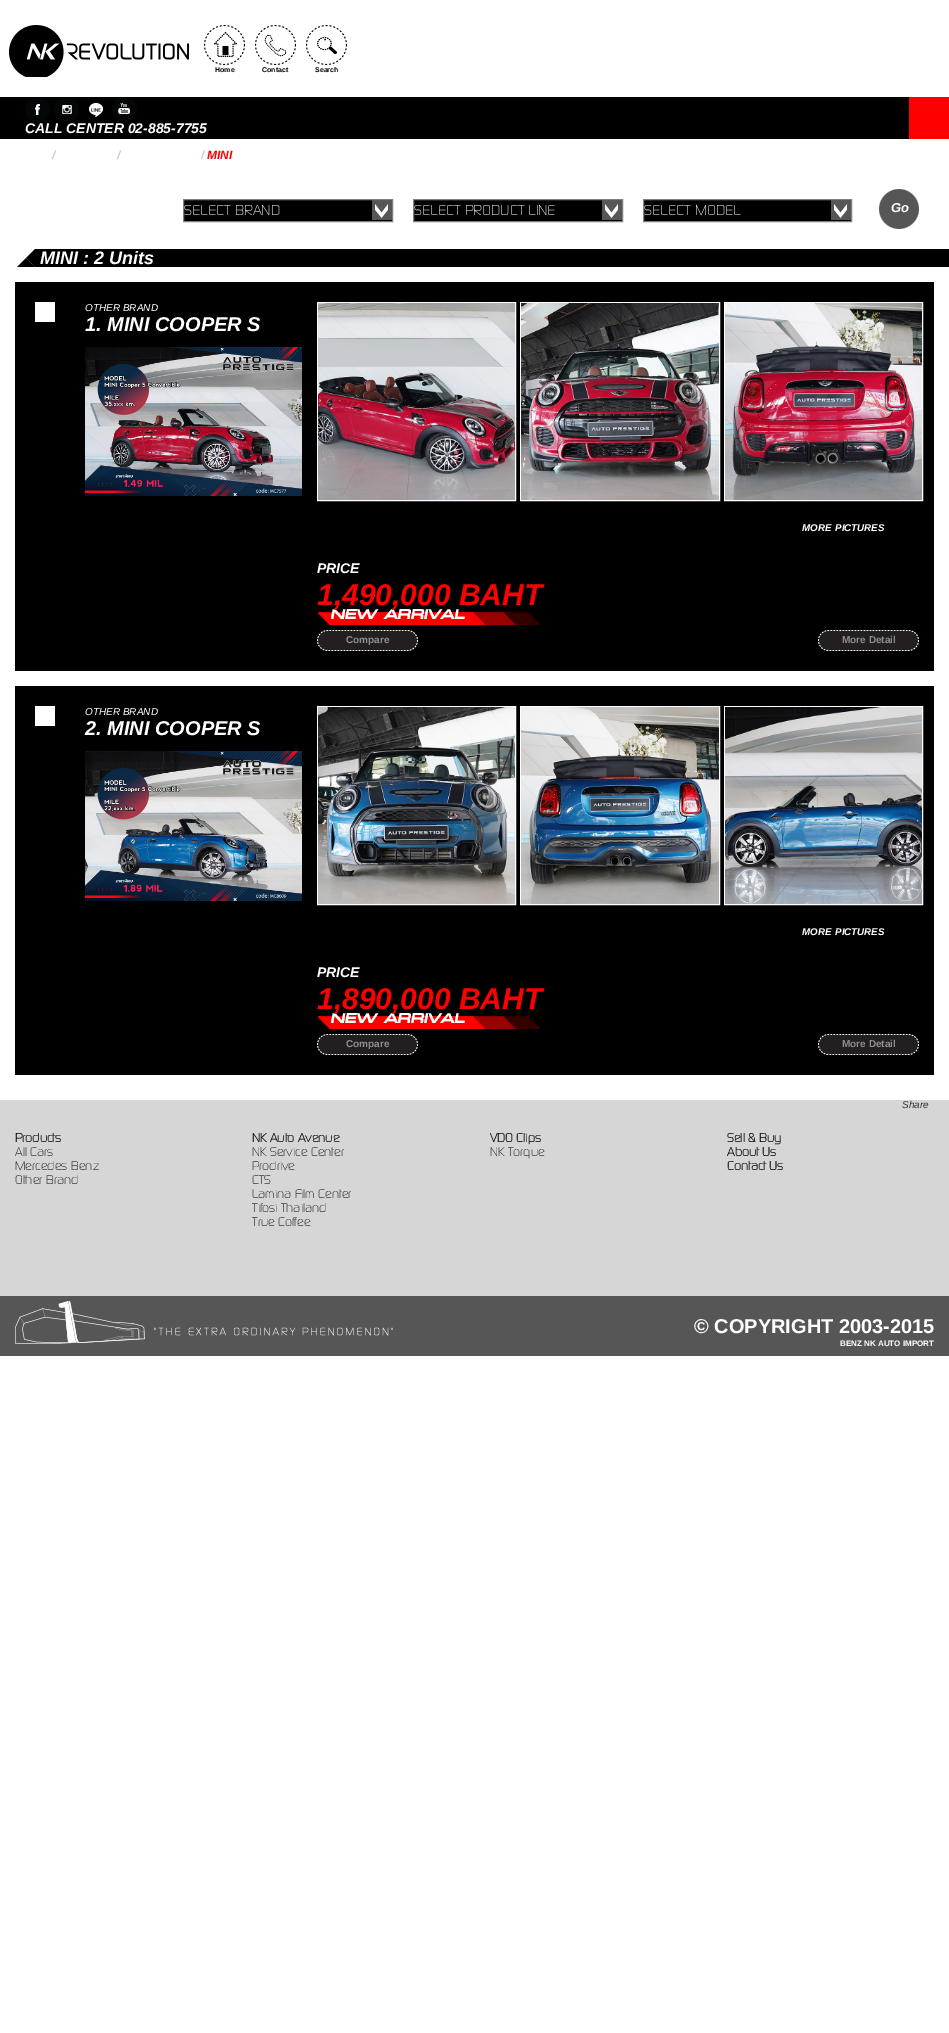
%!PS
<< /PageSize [949 2033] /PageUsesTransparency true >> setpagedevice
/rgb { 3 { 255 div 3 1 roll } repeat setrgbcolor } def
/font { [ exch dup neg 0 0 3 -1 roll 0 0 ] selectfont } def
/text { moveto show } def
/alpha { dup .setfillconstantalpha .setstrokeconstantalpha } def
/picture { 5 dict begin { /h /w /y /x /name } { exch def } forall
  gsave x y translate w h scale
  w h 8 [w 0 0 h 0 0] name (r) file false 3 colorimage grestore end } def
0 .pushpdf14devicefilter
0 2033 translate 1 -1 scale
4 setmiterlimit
255 255 255 rgb
0 0 949 2033 rectfill
(img_01.rgb) 9 25 180 52 picture
(img_02.rgb) 204 25 41 40 picture
(img_03.rgb) 255 25 41 40 picture
(img_04.rgb) 306 25 41 40 picture
0 0 0 rgb
0 97 909 42 rectfill
(img_05.rgb) 25 97 25 25 picture
(img_06.rgb) 54 97 25 25 picture
(img_07.rgb) 89 103 14 14 picture
(img_08.rgb) 112 97 25 25 picture
255 0 0 rgb
909 97 40 42 rectfill
0 0 0 rgb
184 200 208 21 rectfill
(img_09.rgb) 372 200 20 20 picture
128 128 128 rgb
183.5 199.5 209 22 rectstroke
0.07 alpha
0 0 0 rgb
372 200 20 1 rectfill
1 alpha
414 200 208 21 rectfill
(img_09.rgb) 602 200 20 20 picture
128 128 128 rgb
413.5 199.5 209 22 rectstroke
0.07 alpha
0 0 0 rgb
602 200 20 1 rectfill
1 alpha
644 200 207 21 rectfill
(img_09.rgb) 831 200 20 20 picture
128 128 128 rgb
643.5 199.5 208 22 rectstroke
0.07 alpha
0 0 0 rgb
831 200 20 1 rectfill
1 alpha
(img_10.rgb) 879 189 40 40 picture
35 249 914 18 rectfill
35 249 moveto 0 18 rlineto -9 -9 rlineto closepath fill
35 267 moveto -18 0 rlineto 9 -9 rlineto closepath fill
15 282 919 389 rectfill
255 255 255 rgb
35 302 20 20 rectfill
(img_11.rgb) 85 347 217 149 picture
317.5 302.5 198 198 rectstroke
(img_12.rgb) 318 303 197 197 picture
520.5 302.5 199 198 rectstroke
(img_13.rgb) 521 303 198 197 picture
724.5 302.5 198 198 rectstroke
(img_14.rgb) 725 303 197 197 picture
(img_15.rgb) 318 609 222 16 picture
(img_16.rgb) 317 630 101 21 picture
(img_16.rgb) 818 630 101 21 picture
0 0 0 rgb
15 686 919 389 rectfill
255 255 255 rgb
35 706 20 20 rectfill
(img_17.rgb) 85 751 217 150 picture
317.5 706.5 198 198 rectstroke
(img_18.rgb) 318 707 197 197 picture
520.5 706.5 199 198 rectstroke
(img_19.rgb) 521 707 198 197 picture
724.5 706.5 198 198 rectstroke
(img_20.rgb) 725 707 197 197 picture
(img_15.rgb) 318 1013 222 16 picture
(img_16.rgb) 317 1034 101 21 picture
(img_16.rgb) 818 1034 101 21 picture
214 214 214 rgb
0 1100 949 196 rectfill
86 86 86 rgb
0 1296 949 60 rectfill
(img_21.rgb) 15 1301 378 43 picture
/LiberationSans-Bold 7 font
0 0 0 rgb
(Home) 215 72 text
(Contact) 262 72 text
(Search) 315 72 text
/LiberationSans-BoldItalic 14 font
255 255 255 rgb
(CALL CENTER 02-885-7755) 25 133 text
/LiberationSans-BoldItalic 12 font
204 204 204 rgb
(/) 52 159 text
(/) 117 159 text
(/) 201 159 text
255 0 0 rgb
(MINI) 207 159 text
/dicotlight-Light 14 font
255 255 255 rgb
(SELECT BRAND) 184 215 text
(SELECT PRODUCT LINE) 414 215 text
(SELECT MODEL) 644 215 text
/LiberationSans-BoldItalic 13 font
(Go) 891 212 text
/LiberationSans-BoldItalic 18 font
(MINI : 2 Units) 40 264 text
/LiberationSans-Italic 10 font
(OTHER BRAND) 85 311 text
/LiberationSans-BoldItalic 20 font
(1. MINI COOPER S) 85 331 text
/LiberationSans-BoldItalic 9.75 font
(MORE) 802 531 text
(PICTURES) 835 531 text
/LiberationSans-BoldItalic 14 font
(PRICE) 317 573 text
/LiberationSans-BoldItalic 30 font
255 0 0 rgb
(1,490,000 BAHT) 317 605 text
/LiberationSans-Bold 10 font
144 144 144 rgb
(Compare) 346 643 text
(More Detail) 842 643 text
/LiberationSans-Italic 10 font
255 255 255 rgb
(OTHER BRAND) 85 715 text
/LiberationSans-BoldItalic 20 font
(2. MINI COOPER S) 85 735 text
/LiberationSans-BoldItalic 9.75 font
(MORE) 802 935 text
(PICTURES) 835 935 text
/LiberationSans-BoldItalic 14 font
(PRICE) 317 977 text
/LiberationSans-BoldItalic 30 font
255 0 0 rgb
(1,890,000 BAHT) 317 1009 text
/LiberationSans-Bold 10 font
144 144 144 rgb
(Compare) 346 1047 text
(More Detail) 842 1047 text
/LiberationSans-Italic 10 font
51 51 51 rgb
(Share) 902 1108 text
/dicotlight-Bold 12 font
0 0 0 rgb
(Products) 15 1142 text
/dicotlight-Light 12 font
(All Cars) 15 1156 text
(Mercedes Benz) 15 1170 text
(Other Brand) 15 1184 text
/dicotlight-Bold 12 font
(NK Auto Avenue) 252 1142 text
/dicotlight-Light 12 font
(NK Service Center) 252 1156 text
(Prodrive) 252 1170 text
(CTS) 252 1184 text
(Lamina Film Center) 252 1198 text
(Tifosi Thailand) 252 1212 text
(True Coffee) 252 1226 text
/dicotlight-Bold 12 font
(VDO Clips) 490 1142 text
/dicotlight-Light 12 font
(NK Torque) 490 1156 text
/dicotlight-Bold 12 font
(Sell & Buy) 727 1142 text
(About Us) 727 1156 text
(Contact Us) 727 1170 text
/LiberationSans-Bold 20 font
255 255 255 rgb
(© COPYRIGHT 2003-2015) 694 1333 text
/LiberationSans-Bold 8 font
(BENZ NK AUTO IMPORT) 840 1346 text
.poppdf14devicefilter showpage
